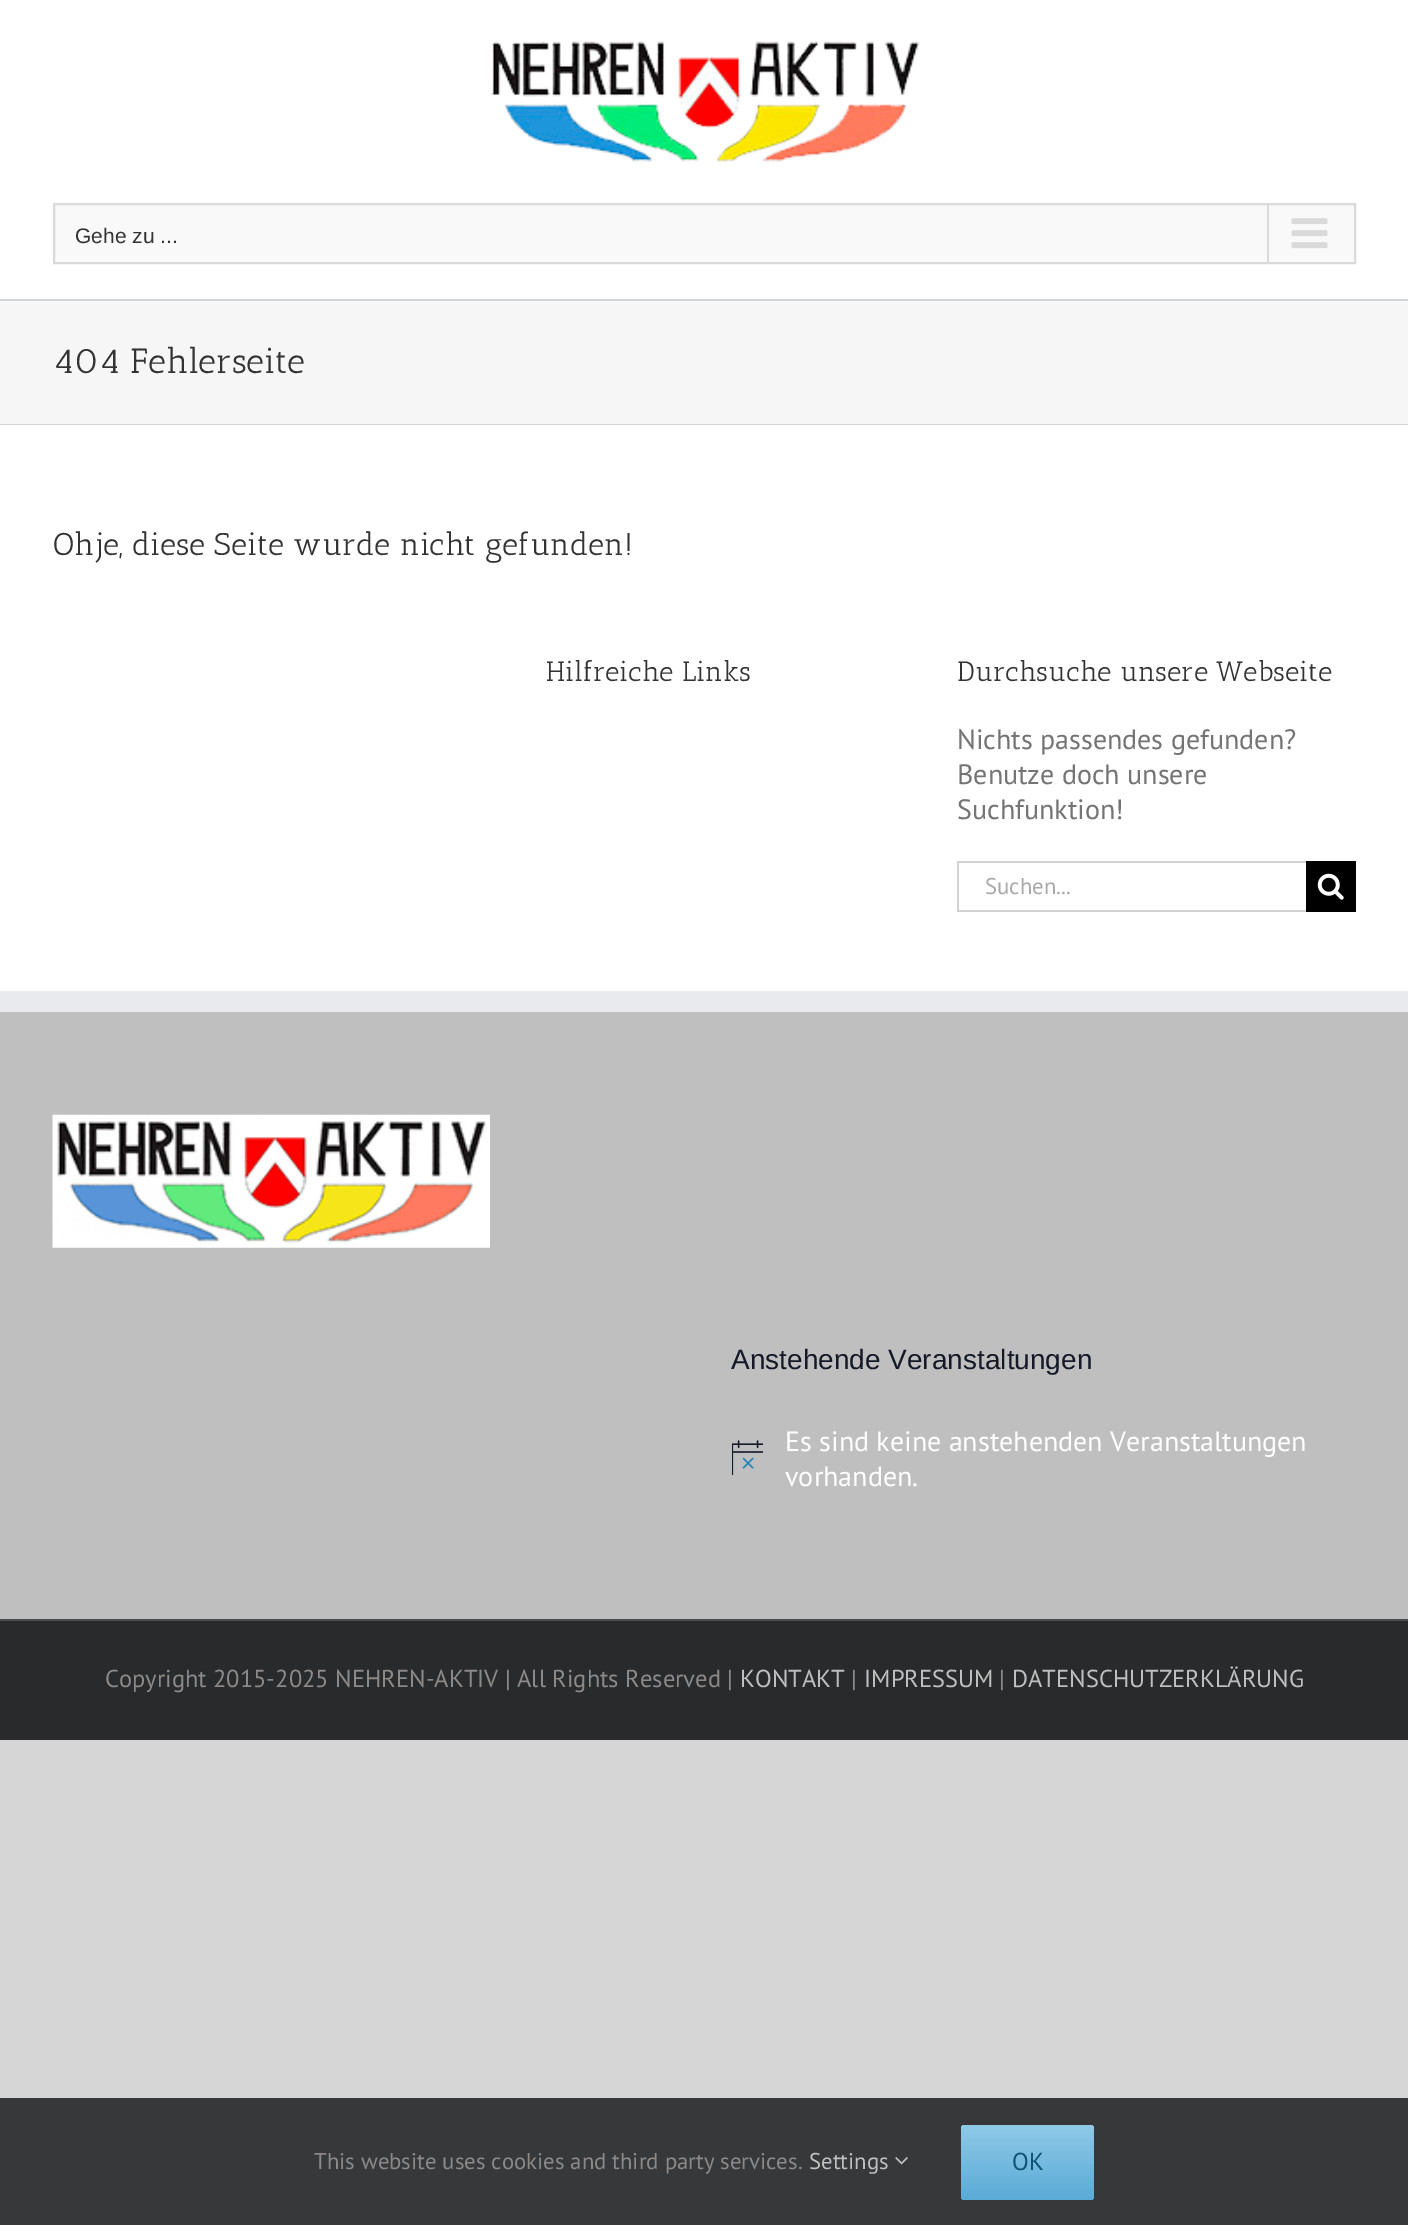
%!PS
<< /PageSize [1408 2225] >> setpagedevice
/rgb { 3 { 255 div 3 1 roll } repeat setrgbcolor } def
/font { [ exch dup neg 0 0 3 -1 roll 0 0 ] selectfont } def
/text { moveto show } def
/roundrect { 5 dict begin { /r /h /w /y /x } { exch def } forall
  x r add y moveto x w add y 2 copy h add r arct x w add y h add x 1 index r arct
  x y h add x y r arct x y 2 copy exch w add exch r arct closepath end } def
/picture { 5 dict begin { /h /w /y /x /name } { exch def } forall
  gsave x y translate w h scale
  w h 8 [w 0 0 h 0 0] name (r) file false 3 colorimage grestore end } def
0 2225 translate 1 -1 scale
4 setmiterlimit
215 214 214 rgb
0 0 1408 2225 rectfill
255 255 255 rgb
0 0 1408 299 rectfill
(img_01.rgb) 491 41 429 121 picture
249 249 249 rgb
54 204 moveto 1301 0 rlineto 0 59 rlineto -1301 0 rlineto closepath gsave fill grestore
218 218 218 rgb
2 setlinewidth
stroke
1267 205 2 58 rectfill
(img_02.rgb) 1291 218 37 31 picture
246 246 246 rgb
0 301 1408 123 rectfill
210 211 212 rgb
0 299 1408 2 rectfill
0 424 1408 1 rectfill
255 255 255 rgb
0 425 1408 566 rectfill
210 210 210 rgb
957 861 349 2 rectfill
957 910 349 2 rectfill
957 861 2 51 rectfill
0 0 0 rgb
1306 861 50 51 rectfill
(img_03.rgb) 1317 873 27 27 picture
191 191 191 rgb
0 1012 1408 607 rectfill
233 234 238 rgb
0 991 1408 21 rectfill
(img_04.rgb) 52 1114 438 134 picture
(img_05.rgb) 732 1440 31 35 picture
40 42 43 rgb
0 1621 1408 119 rectfill
75 76 77 rgb
0 1619 1408 2 rectfill
54 56 57 rgb
0 2098 1408 127 rectfill
(img_06.rgb) 895 2157 13 8 picture
gsave 961 2125 133 75 4 roundrect clip newpath
<< /ShadingType 2 /ColorSpace /DeviceRGB /Coords [1027 2125 1027 2200] /Extend [true true] /Function << /FunctionType 2 /Domain [0 1] /C0 [0.565 0.788 0.91] /C1 [0.353 0.671 0.839] /N 1 >> >> shfill grestore
/LiberationSans-Regular 21 font
51 51 51 rgb
(Gehe zu ...) 75 243 text
/AnticSlab-Regular 35 font
(404 Fehlerseite) 53 373 text
/AnticSlab-Regular 31.5 font
(Ohje, diese Seite wurde nicht gefunden!) 53 555 text
/AnticSlab-Regular 28 font
(Hilfreiche Links) 546 681 text
(Durchsuche unsere Webseite) 957 681 text
/PTSans-Regular 28 font
116 116 116 rgb
(Nichts passendes gefunden?) 957 749 text
(Benutze doch unsere) 957 784 text
(Suchfunktion!) 957 819 text
/PTSans-Regular 22.75 font
170 169 169 rgb
(Suchen...) 985 894 text
/LiberationSans-Regular 28 font
20 24 39 rgb
(Anstehende Veranstaltungen) 731 1369 text
/PTSans-Regular 28 font
255 255 255 rgb
(Es sind keine anstehenden Veranstaltungen) 785 1451 text
(vorhanden.) 785 1486 text
/PTSans-Regular 24.5 font
140 137 137 rgb
(Copyright 2015-2025 NEHREN-AKTIV | All Rights Reserved |) 105 1687 text
191 191 191 rgb
(KONTAKT) 740 1687 text
140 137 137 rgb
(|) 851 1687 text
191 191 191 rgb
(IMPRESSUM) 864 1687 text
140 137 137 rgb
(|) 999 1687 text
191 191 191 rgb
(DATENSCHUTZERKLÄRUNG) 1012 1687 text
/PTSans-Regular 22.75 font
140 137 137 rgb
(This website uses cookies and third party services.) 314 2169 text
191 191 191 rgb
(Settings) 809 2169 text
/PTSans-Regular 24.5 font
16 83 120 rgb
(OK) 1012 2170 text
showpage
